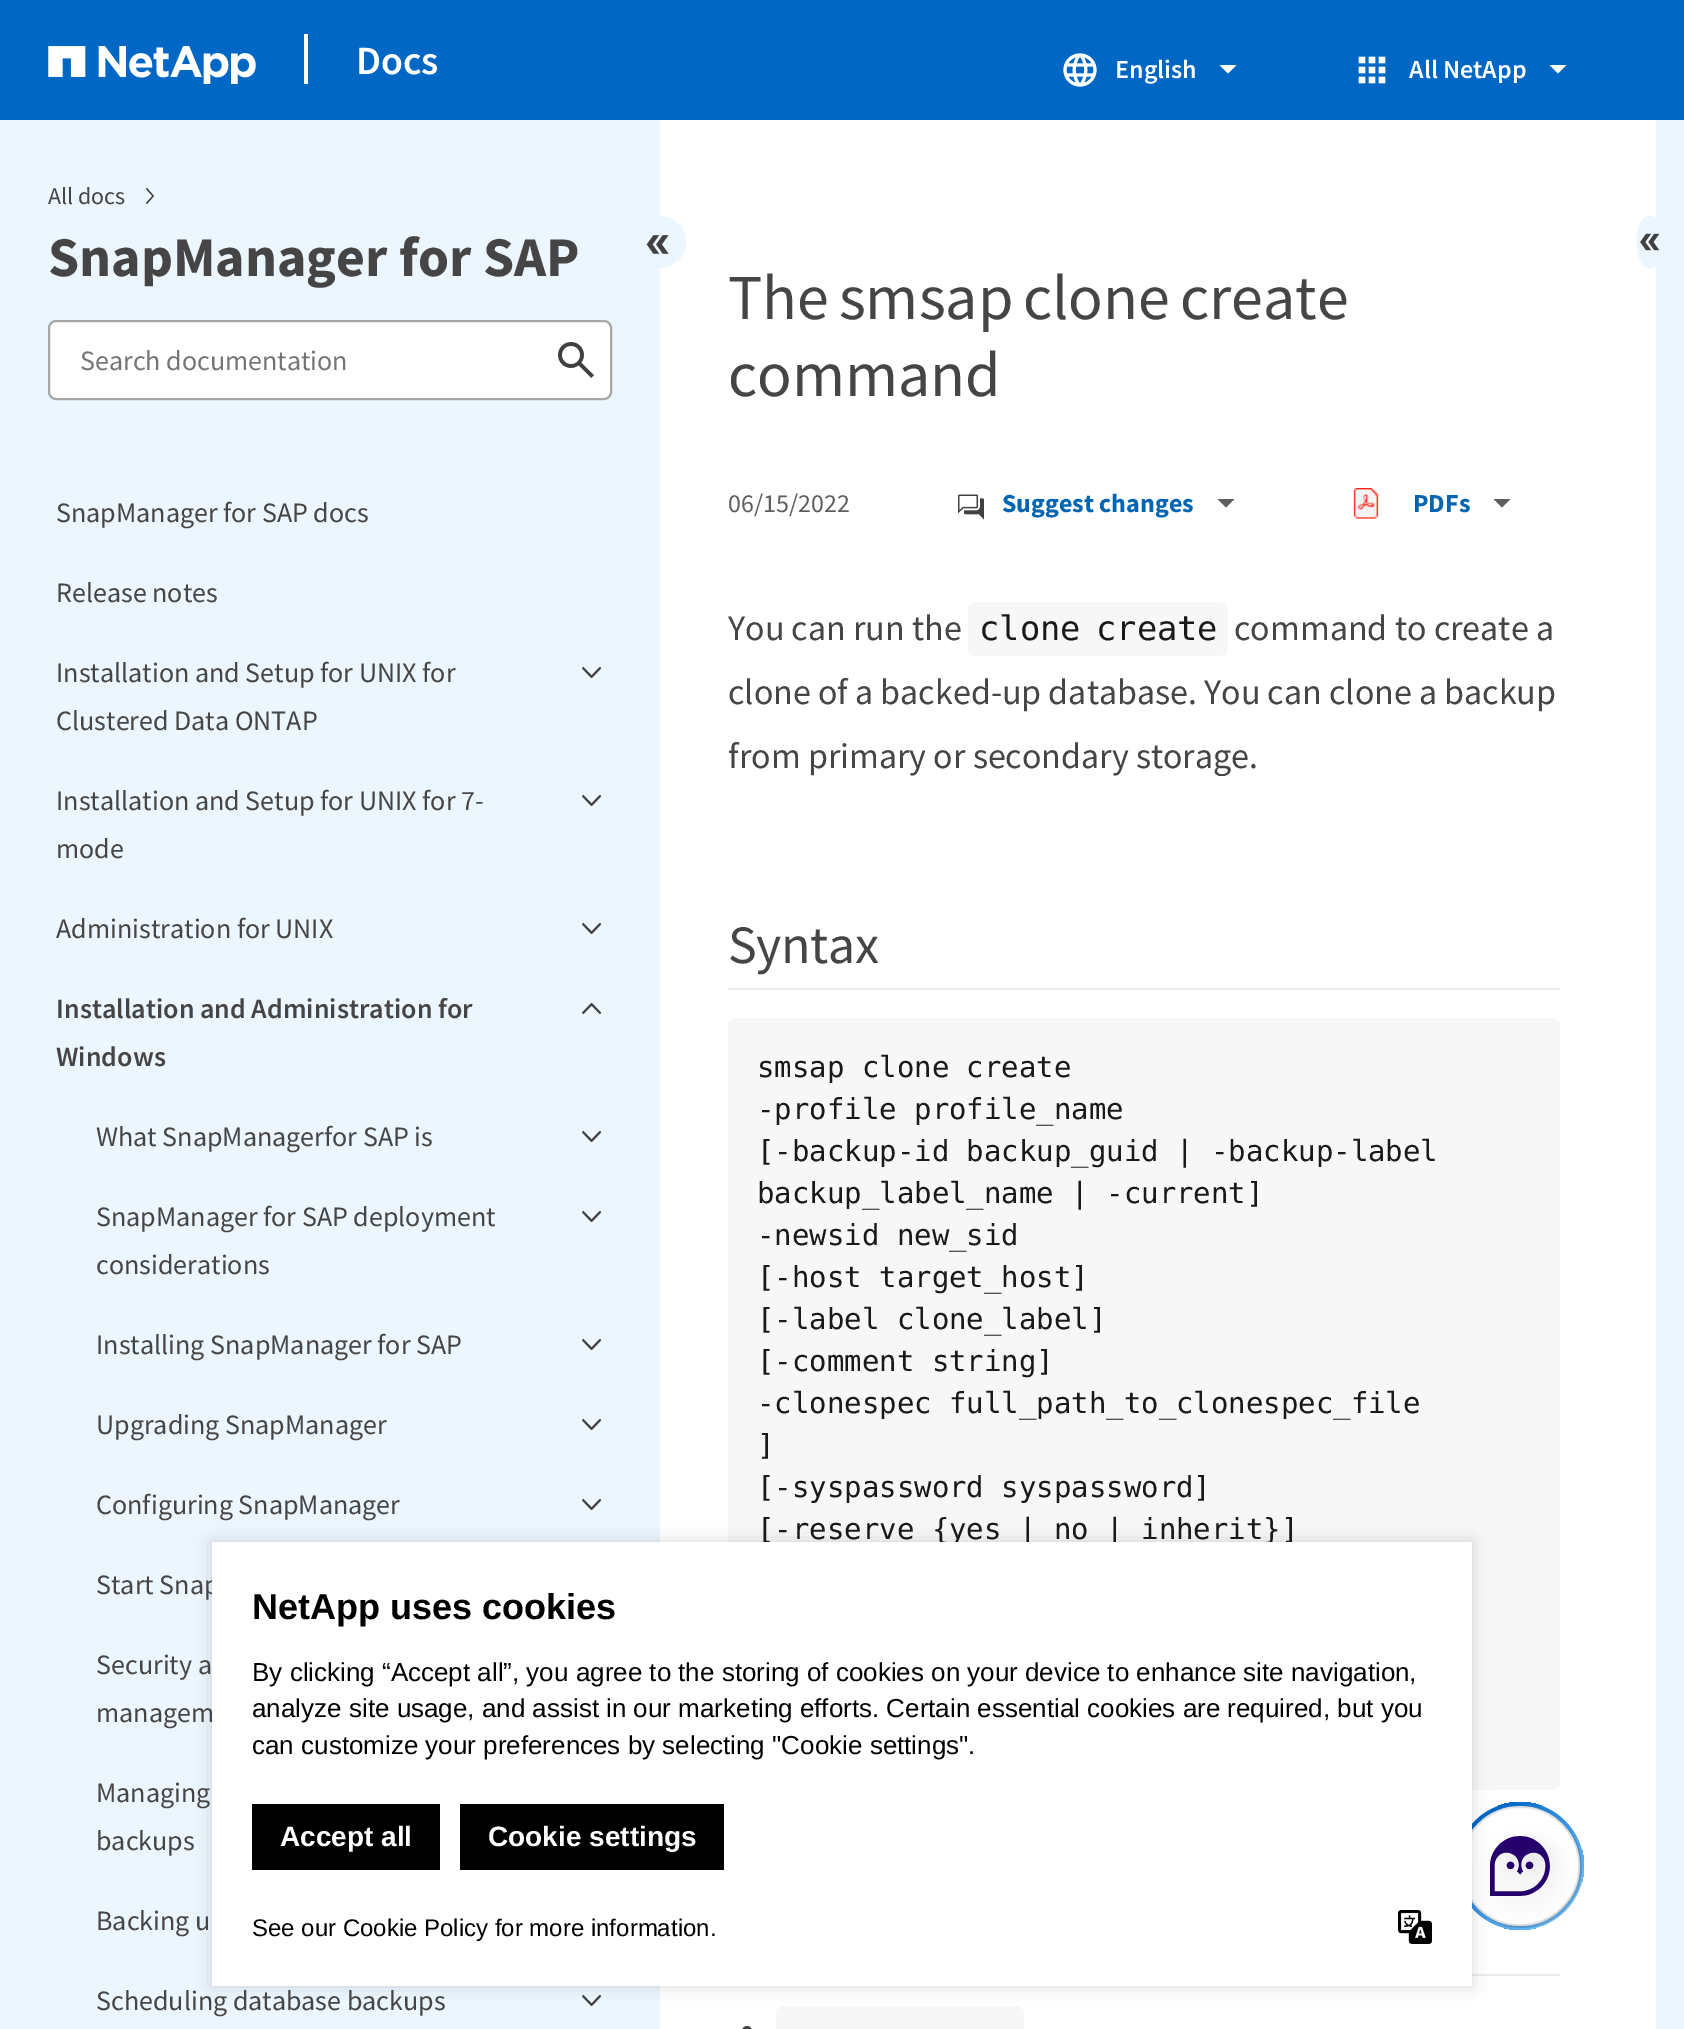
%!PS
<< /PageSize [1684 2029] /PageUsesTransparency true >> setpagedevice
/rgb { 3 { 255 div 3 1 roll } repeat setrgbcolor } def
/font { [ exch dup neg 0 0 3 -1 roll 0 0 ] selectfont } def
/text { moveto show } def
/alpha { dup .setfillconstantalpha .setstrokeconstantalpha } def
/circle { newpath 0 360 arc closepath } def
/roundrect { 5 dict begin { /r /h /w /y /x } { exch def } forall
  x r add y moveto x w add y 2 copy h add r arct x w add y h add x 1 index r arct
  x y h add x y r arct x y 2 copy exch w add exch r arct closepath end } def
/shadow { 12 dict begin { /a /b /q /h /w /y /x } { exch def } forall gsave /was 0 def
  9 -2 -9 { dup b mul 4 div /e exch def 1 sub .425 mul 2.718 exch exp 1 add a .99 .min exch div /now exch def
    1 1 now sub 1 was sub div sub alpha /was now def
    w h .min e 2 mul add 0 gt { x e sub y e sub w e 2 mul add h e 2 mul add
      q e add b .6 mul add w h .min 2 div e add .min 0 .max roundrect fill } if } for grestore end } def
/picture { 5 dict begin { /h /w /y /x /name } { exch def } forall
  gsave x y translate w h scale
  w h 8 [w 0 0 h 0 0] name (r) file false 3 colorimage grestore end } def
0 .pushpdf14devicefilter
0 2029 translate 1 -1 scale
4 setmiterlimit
255 255 255 rgb
0 0 1684 2029 rectfill
0 103 197 rgb
0 0 1684 120 rectfill
(img_01.rgb) 48 46 208 38 picture
255 255 255 rgb
304 34 4 50 rectfill
(img_02.rgb) 1063 53 34 34 picture
253 253 253 rgb
1228 73.5 moveto -8.5 -8.5 rlineto 17 0 rlineto closepath fill
(img_03.rgb) 1358 56 28 28 picture
1558 73.5 moveto -8.5 -8.5 rlineto 17 0 rlineto closepath fill
236 246 255 rgb
0 120 660 1909 rectfill
(img_04.rgb) 146 188 8 16 picture
660 242 26 circle fill
(img_05.rgb) 646 235 23 19 picture
255 255 255 rgb
49 321 562 78 7 roundrect gsave fill grestore
167 167 167 rgb
2 setlinewidth
stroke
(img_06.rgb) 558 342 36 36 picture
(img_07.rgb) 582 667 19 11 picture
(img_07.rgb) 582 795 19 11 picture
(img_07.rgb) 582 923 19 11 picture
(img_08.rgb) 582 1003 19 11 picture
(img_07.rgb) 582 1131 19 11 picture
(img_07.rgb) 582 1211 19 11 picture
(img_07.rgb) 582 1339 19 11 picture
(img_07.rgb) 582 1419 19 11 picture
(img_07.rgb) 582 1499 19 11 picture
(img_07.rgb) 582 1995 19 11 picture
(img_09.rgb) 958 494 26 26 picture
94 94 94 rgb
1226 507.5 moveto -8.5 -8.5 rlineto 17 0 rlineto closepath fill
(img_10.rgb) 1353 488 26 31 picture
1502 507.5 moveto -8.5 -8.5 rlineto 17 0 rlineto closepath fill
247 247 248 rgb
968 602 260 54 8 roundrect fill
234 236 239 rgb
728 988 832 2 rectfill
247 247 248 rgb
728 1018 832 772 8 roundrect fill
234 236 239 rgb
1472 1974 88 2 rectfill
69 69 69 rgb
742 2026 10 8 5 roundrect fill
247 247 248 rgb
776 2006 248 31 8 roundrect fill
236 246 255 rgb
1656 120 28 1909 rectfill
1650 268 moveto -18 0 -18 -52 0 -52 rcurveto 18 0 18 52 0 52 rcurveto closepath fill
(img_11.rgb) 1640 233 20 18 picture
gsave 1520 1866 64 circle clip newpath
<< /ShadingType 2 /ColorSpace /DeviceRGB /Coords [1456 1802 1584 1930] /Extend [true true] /Function << /FunctionType 3 /Domain [0 1] /Functions [<< /FunctionType 2 /Domain [0 1] /C0 [0 0.404 0.773] /C1 [0 0.404 0.773] /N 1 >> << /FunctionType 2 /Domain [0 1] /C0 [0 0.404 0.773] /C1 [0.478 0.765 0.98] /N 1 >> << /FunctionType 2 /Domain [0 1] /C0 [0.478 0.765 0.98] /C1 [0.478 0.765 0.98] /N 1 >>] /Bounds [0.18 0.89] /Encode [0 1 0 1 0 1] >> >> shfill grestore
(img_12.rgb) 1472 1806 110 122 picture
0 0 0 rgb
212 1542 1260 444 0 8 0.15 shadow
/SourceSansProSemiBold-SemiBold 40 font
255 255 255 rgb
(Docs) 356 74 text
/SourceSansProSemiBold-SemiBold 26 font
(English) 1115 78 text
(All NetApp) 1409 78 text
/SourceSansPro-Regular 24 font
69 69 69 rgb
(All docs) 48 204 text
/SourceSansPro-Bold 56 font
(SnapManager for SAP) 48 276 text
/SourceSansPro-Regular 28 font
117 117 117 rgb
(Search documentation) 80 370 text
69 69 69 rgb
(SnapManager for SAP docs) 56 522 text
(Release notes) 56 602 text
(Installation and Setup for UNIX for) 56 682 text
(Clustered Data ONTAP) 56 730 text
(Installation and Setup for UNIX for 7-) 56 810 text
(mode) 56 858 text
(Administration for UNIX) 56 938 text
/SourceSansProSemiBold-SemiBold 28 font
(Installation and Administration for) 56 1018 text
(Windows) 56 1066 text
/SourceSansPro-Regular 28 font
(What SnapManagerfor SAP is) 96 1146 text
(SnapManager for SAP deployment) 96 1226 text
(considerations) 96 1274 text
(Installing SnapManager for SAP) 96 1354 text
(Upgrading SnapManager) 96 1434 text
(Configuring SnapManager) 96 1514 text
(Start Snap) 96 1594 text
(Security a) 96 1674 text
(managem) 96 1722 text
(Managing) 96 1802 text
(backups) 96 1850 text
(Backing u) 96 1930 text
(Scheduling database backups) 96 2010 text
/SourceSansPro-Regular 64 font
728 319 moveto -3 0 32 (The smsap clone create) widthshow
(command) 728 396 text
/SourceSansPro-Regular 26 font
94 94 94 rgb
(06/15/2022) 728 512 text
/SourceSansPro-Bold 26 font
0 101 179 rgb
(Suggest changes) 1002 512 text
(PDFs) 1413 512 text
/SourceSansPro-Regular 36 font
69 69 69 rgb
(You can run the) 728 640 text
/DejaVuSansMono-Regular 33.75 font
25 25 25 rgb
979 640 moveto -5 0 32 (clone create) widthshow
/SourceSansPro-Regular 36 font
69 69 69 rgb
(command to create a) 1234 640 text
(clone of a backed-up database. You can clone a backup) 728 704 text
(from primary or secondary storage.) 728 768 text
/SourceSansPro-Regular 54 font
728 963 moveto -0.5 0 (Syntax) ashow
/DejaVuSansMono-Regular 29 font
25 25 25 rgb
(smsap clone create) 757 1077 text
(-profile profile_name) 757 1119 text
([-backup-id backup_guid | -backup-label) 757 1161 text
(backup_label_name | -current]) 757 1203 text
(-newsid new_sid) 757 1245 text
([-host target_host]) 757 1287 text
([-label clone_label]) 757 1329 text
([-comment string]) 757 1371 text
(-clonespec full_path_to_clonespec_file) 757 1413 text
(]) 757 1455 text
([-syspassword syspassword]) 757 1497 text
([-reserve {yes | no | inherit}]) 757 1539 text
255 255 255 rgb
212 1542 1260 444 rectfill
/LiberationSans-Bold 36 font
0 0 0 rgb
(NetApp uses cookies) 252 1619 text
/LiberationSans-Regular 26 font
(By clicking “Accept all”, you agree to the storing of cookies on your device to enhance site navigation,) 252 1681 text
(analyze site usage, and assist in our marketing efforts. Certain essential cookies are required, but you) 252 1717 text
(can customize your preferences by selecting "Cookie settings".) 252 1754 text
252 1804 188 66 rectfill
/LiberationSans-Bold 28 font
255 255 255 rgb
(Accept all) 280 1846 text
0 0 0 rgb
460 1804 264 66 rectfill
255 255 255 rgb
(Cookie settings) 488 1846 text
/LiberationSans-Regular 24 font
0 0 0 rgb
(See our Cookie Policy for more information.) 252 1936 text
(img_13.rgb) 1398 1910 34 34 picture
.poppdf14devicefilter showpage
